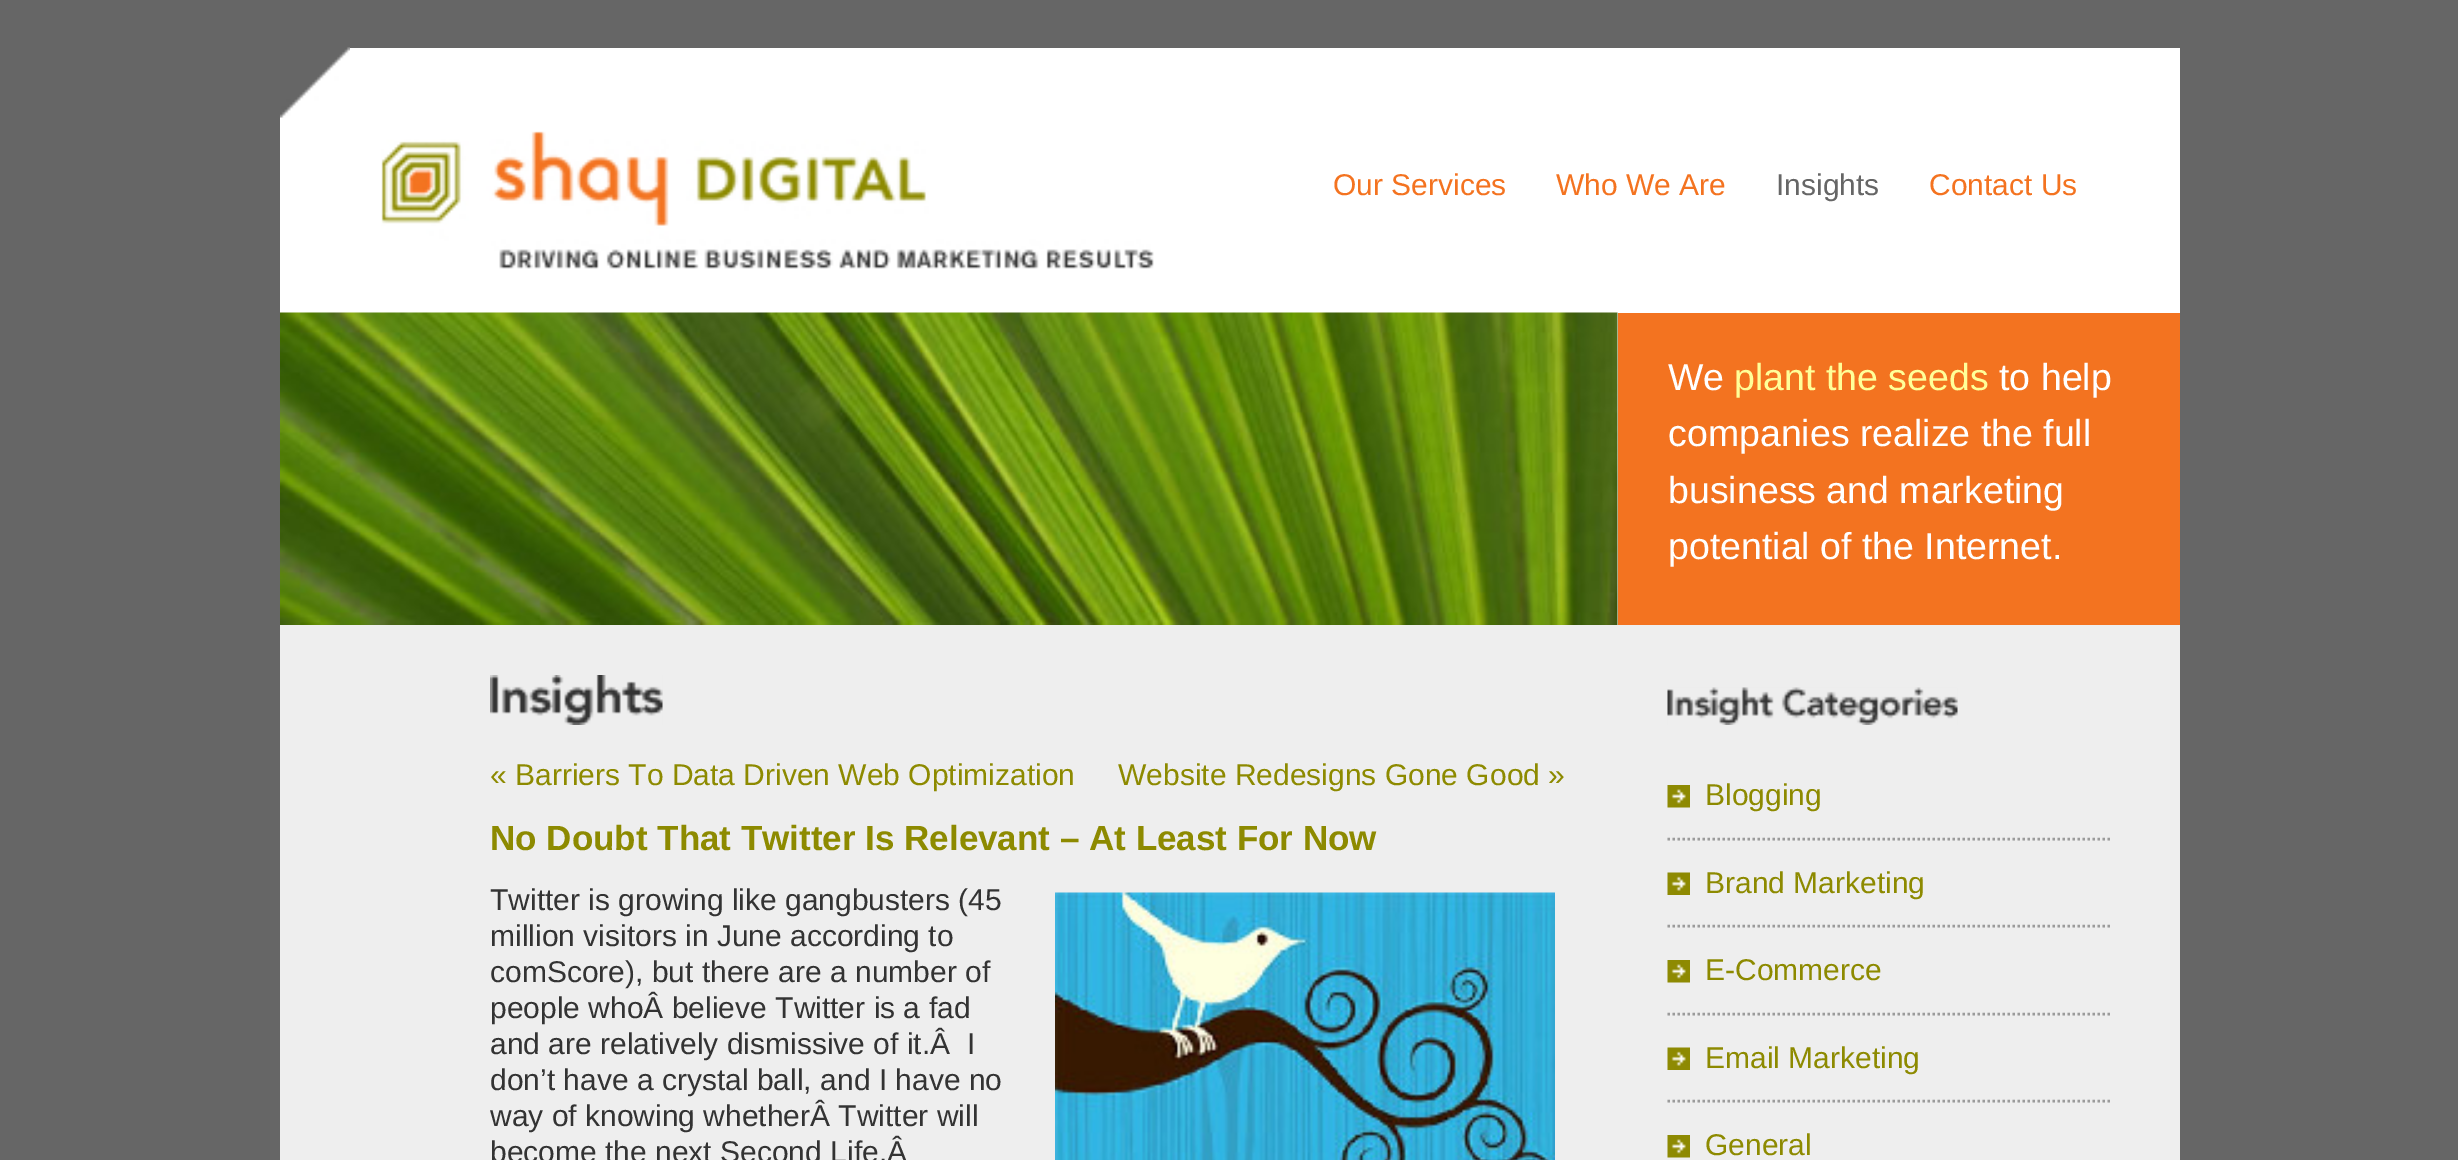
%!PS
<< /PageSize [2458 1160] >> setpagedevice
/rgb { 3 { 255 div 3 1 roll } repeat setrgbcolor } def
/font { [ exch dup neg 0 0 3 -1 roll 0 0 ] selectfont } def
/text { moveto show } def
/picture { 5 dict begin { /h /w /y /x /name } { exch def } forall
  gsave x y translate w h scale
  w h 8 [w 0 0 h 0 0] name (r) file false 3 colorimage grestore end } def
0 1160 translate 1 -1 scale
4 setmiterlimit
102 102 102 rgb
0 0 2458 1160 rectfill
255 255 255 rgb
280 48 1900 577 rectfill
(img_01.rgb) 280 47 70 71 picture
(img_02.rgb) 381 131 773 138 picture
(img_03.rgb) 280 312 1338 313 picture
243 115 32 rgb
1618 313 562 312 rectfill
238 238 238 rgb
280 625 1900 535 rectfill
(img_04.rgb) 490 675 173 50 picture
(img_05.rgb) 1055 892 500 268 picture
(img_06.rgb) 1667 687 291 38 picture
155 155 155 rgb
2.5 setlinewidth
[2.5 2.5] 0 setdash
1667.5 839 moveto 442.5 0 rlineto stroke
(img_07.rgb) 1667 785 23 23 picture
1667.5 926 moveto 442.5 0 rlineto stroke
(img_08.rgb) 1667 872 23 23 picture
1667.5 1014 moveto 442.5 0 rlineto stroke
(img_07.rgb) 1667 960 23 23 picture
1667.5 1101 moveto 442.5 0 rlineto stroke
(img_08.rgb) 1667 1047 23 23 picture
(img_07.rgb) 1667 1135 23 23 picture
/LiberationSans-Regular 30 font
244 115 32 rgb
(Our Services) 1333 195 text
(Who We Are) 1556 195 text
102 102 102 rgb
(Insights) 1776 195 text
244 115 32 rgb
(Contact Us) 1929 195 text
/LiberationSans-Regular 37.5 font
255 255 255 rgb
(We) 1668 390 text
255 255 153 rgb
(plant the seeds) 1734 390 text
255 255 255 rgb
(to help) 1999 390 text
(companies realize the full) 1668 446 text
(business and marketing) 1668 503 text
(potential of the Internet.) 1668 559 text
/LiberationSans-Regular 30 font
141 138 0 rgb
(« Barriers To Data Driven Web Optimization) 490 785 text
(Website Redesigns Gone Good ») 1118 785 text
/LiberationSans-Bold 35 font
(No Doubt That Twitter Is Relevant – At Least For Now) 490 850 text
/LiberationSans-Regular 30 font
51 51 51 rgb
(Twitter is growing like gangbusters \(45) 490 910 text
(million visitors in June according to) 490 946 text
(comScore\), but there are a number of) 490 982 text
(people whoÂ believe Twitter is a fad) 490 1018 text
(and are relatively dismissive of it.Â  I) 490 1054 text
(don’t have a crystal ball, and I have no) 490 1090 text
(way of knowing whetherÂ Twitter will) 490 1126 text
(become the next Second Life.Â) 490 1162 text
141 138 0 rgb
(Blogging) 1705 805 text
(Brand Marketing) 1705 893 text
(E-Commerce) 1705 980 text
(Email Marketing) 1705 1068 text
(General) 1705 1155 text
showpage
